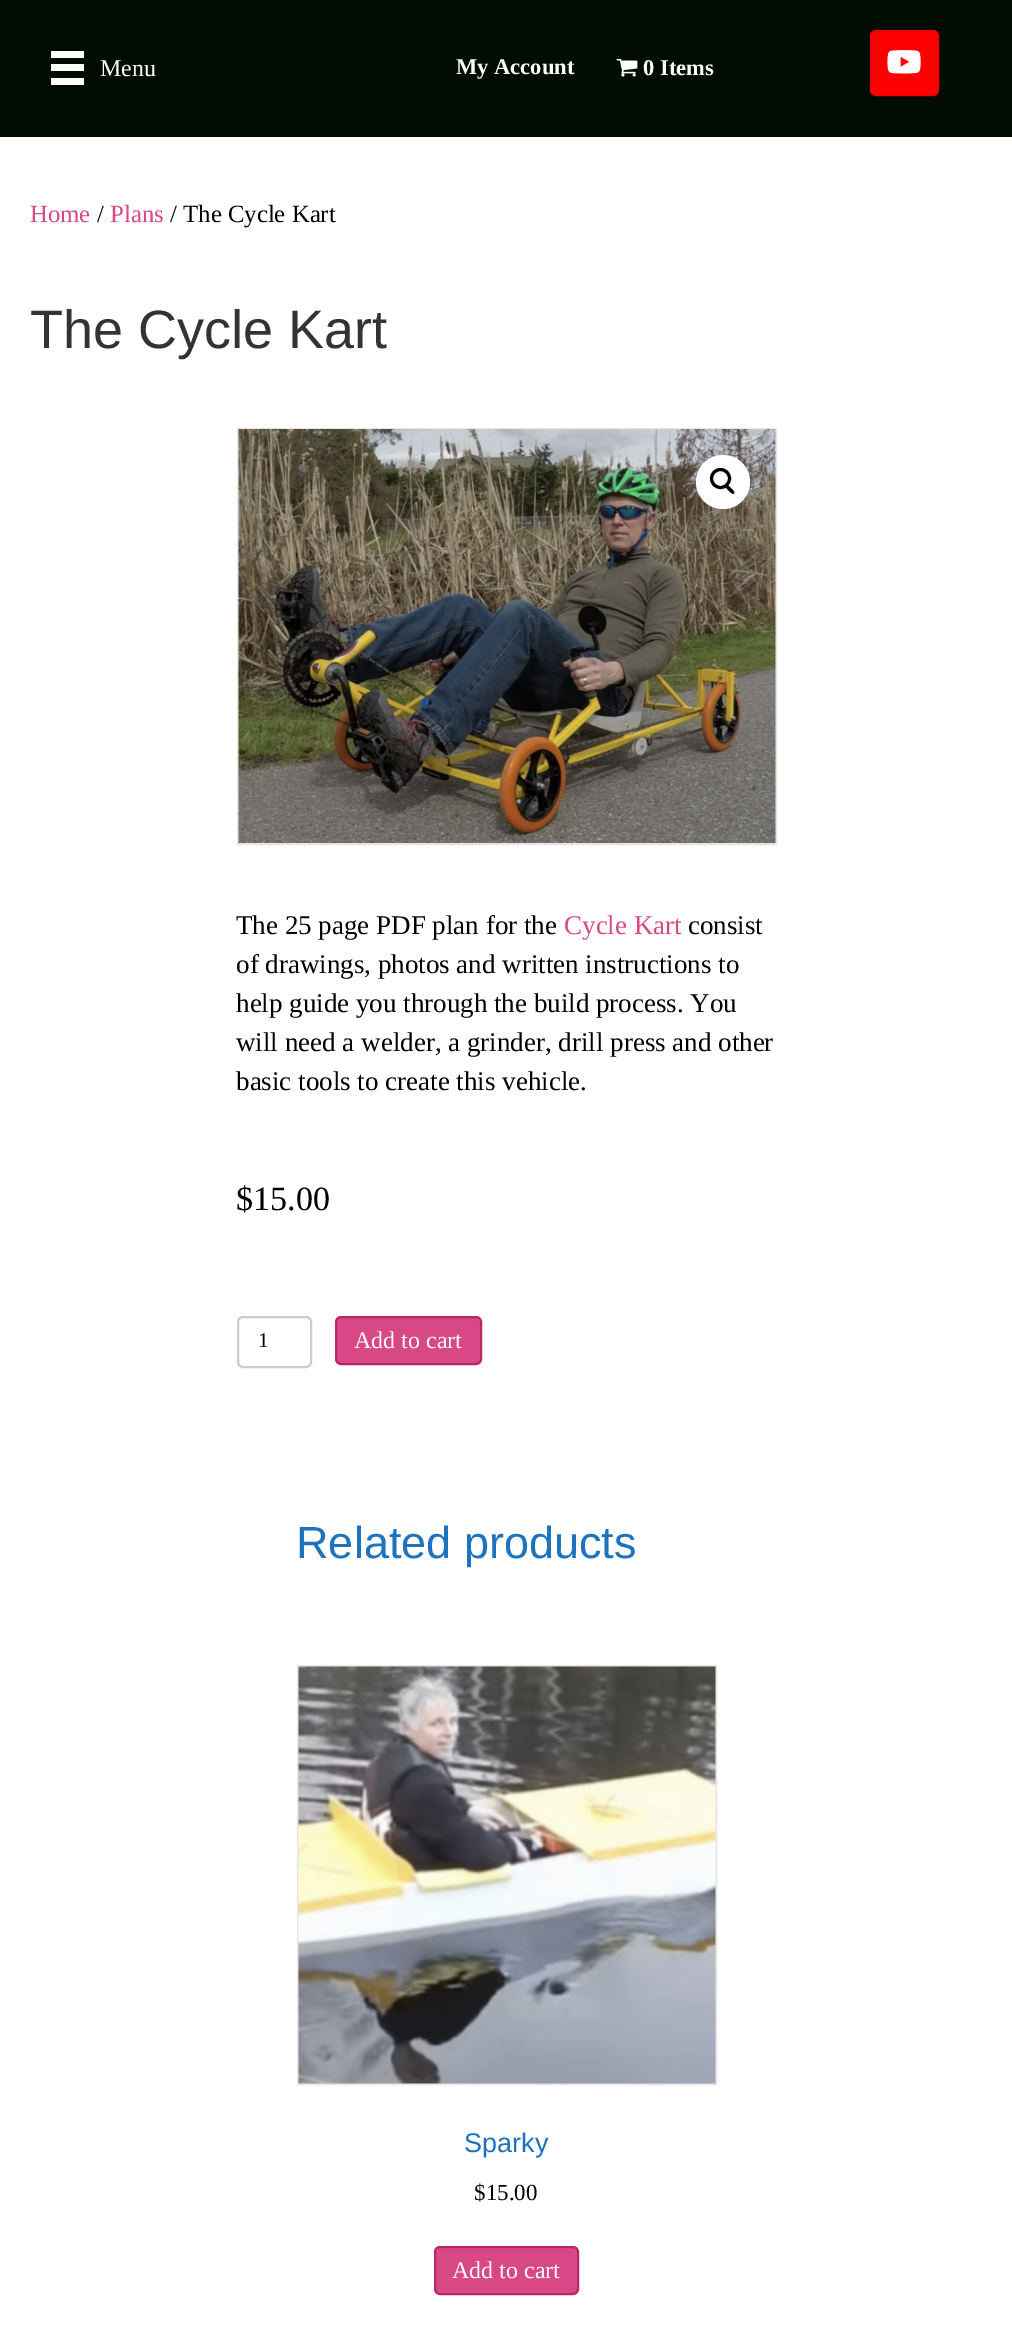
%!PS
<< /PageSize [1012 2328] >> setpagedevice
/rgb { 3 { 255 div 3 1 roll } repeat setrgbcolor } def
/font { [ exch dup neg 0 0 3 -1 roll 0 0 ] selectfont } def
/text { moveto show } def
/circle { newpath 0 360 arc closepath } def
/roundrect { 5 dict begin { /r /h /w /y /x } { exch def } forall
  x r add y moveto x w add y 2 copy h add r arct x w add y h add x 1 index r arct
  x y h add x y r arct x y 2 copy exch w add exch r arct closepath end } def
/picture { 5 dict begin { /h /w /y /x /name } { exch def } forall
  gsave x y translate w h scale
  w h 8 [w 0 0 h 0 0] name (r) file false 3 colorimage grestore end } def
0 2328 translate 1 -1 scale
4 setmiterlimit
255 255 255 rgb
0 0 1012 2328 rectfill
0 12 2 rgb
0 0 1012 137 rectfill
255 255 255 rgb
51 51 33 7 rectfill
51 64 33 7 rectfill
51 78 33 7 rectfill
(img_01.rgb) 616 58 22 19 picture
255 0 0 rgb
871 31 67 64 5 roundrect gsave fill grestore
243 0 0 rgb
2 setlinewidth
stroke
(img_02.rgb) 887 50 34 24 picture
230 230 230 rgb
238 429 538 415 rectstroke
(img_03.rgb) 238 429 538 414 picture
255 255 255 rgb
723 482 27 circle fill
0 0 0 rgb
3 setlinewidth
720.5 478.5 9 circle stroke
725.5 485 moveto 1.5 -1.5 4.5 2.5 5.5 3 rcurveto 0.5 1 4.5 4 3 5.5 rcurveto -1.5 1.5 -4.5 -2.5 -5.5 -3 rcurveto -0.5 -1 -4.5 -4 -3 -5.5 rcurveto closepath fill
204 204 204 rgb
2 setlinewidth
238 1317 73 50 5 roundrect stroke
216 71 134 rgb
336 1317 145 47 5 roundrect gsave fill grestore
186 39 103 rgb
stroke
230 230 230 rgb
298 1666 418 418 rectstroke
(img_04.rgb) 298 1666 418 418 picture
216 71 134 rgb
435 2247 143 47 5 roundrect gsave fill grestore
186 39 103 rgb
stroke
/LiberationSerif-Regular 24 font
255 255 255 rgb
(Menu) 100 76 text
/LiberationSerif-Bold 22.5 font
(My Account) 456 74 text
(0 Items) 643 75 text
/LiberationSerif-Regular 24.75 font
216 71 134 rgb
(Home) 30 222 text
0 0 0 rgb
(/) 97 222 text
216 71 134 rgb
(Plans) 110 222 text
0 0 0 rgb
(/ The Cycle Kart) 170 222 text
/LiberationSans-Regular 54 font
51 51 51 rgb
(The Cycle Kart) 30 348 text
/LiberationSerif-Regular 27 font
0 0 0 rgb
(The 25 page PDF plan for the) 236 934 text
216 71 134 rgb
(Cycle Kart) 564 934 text
0 0 0 rgb
(consist) 688 934 text
(of drawings, photos and written instructions to) 236 973 text
(help guide you through the build process. You) 236 1012 text
(will need a welder, a grinder, drill press and other) 236 1051 text
(basic tools to create this vehicle.) 236 1090 text
/LiberationSerif-Regular 34 font
($15.00) 236 1210 text
/LiberationSerif-Regular 21 font
(1) 258 1347 text
/LiberationSerif-Regular 24 font
255 255 255 rgb
(Add to cart) 354 1348 text
/LiberationSans-Regular 45 font
30 115 190 rgb
(Related products) 296 1558 text
/LiberationSans-Regular 27 font
(Sparky) 464 2152 text
/LiberationSerif-Regular 23 font
0 0 0 rgb
($15.00) 474 2200 text
/LiberationSerif-Regular 24 font
255 255 255 rgb
(Add to cart) 452 2278 text
showpage
